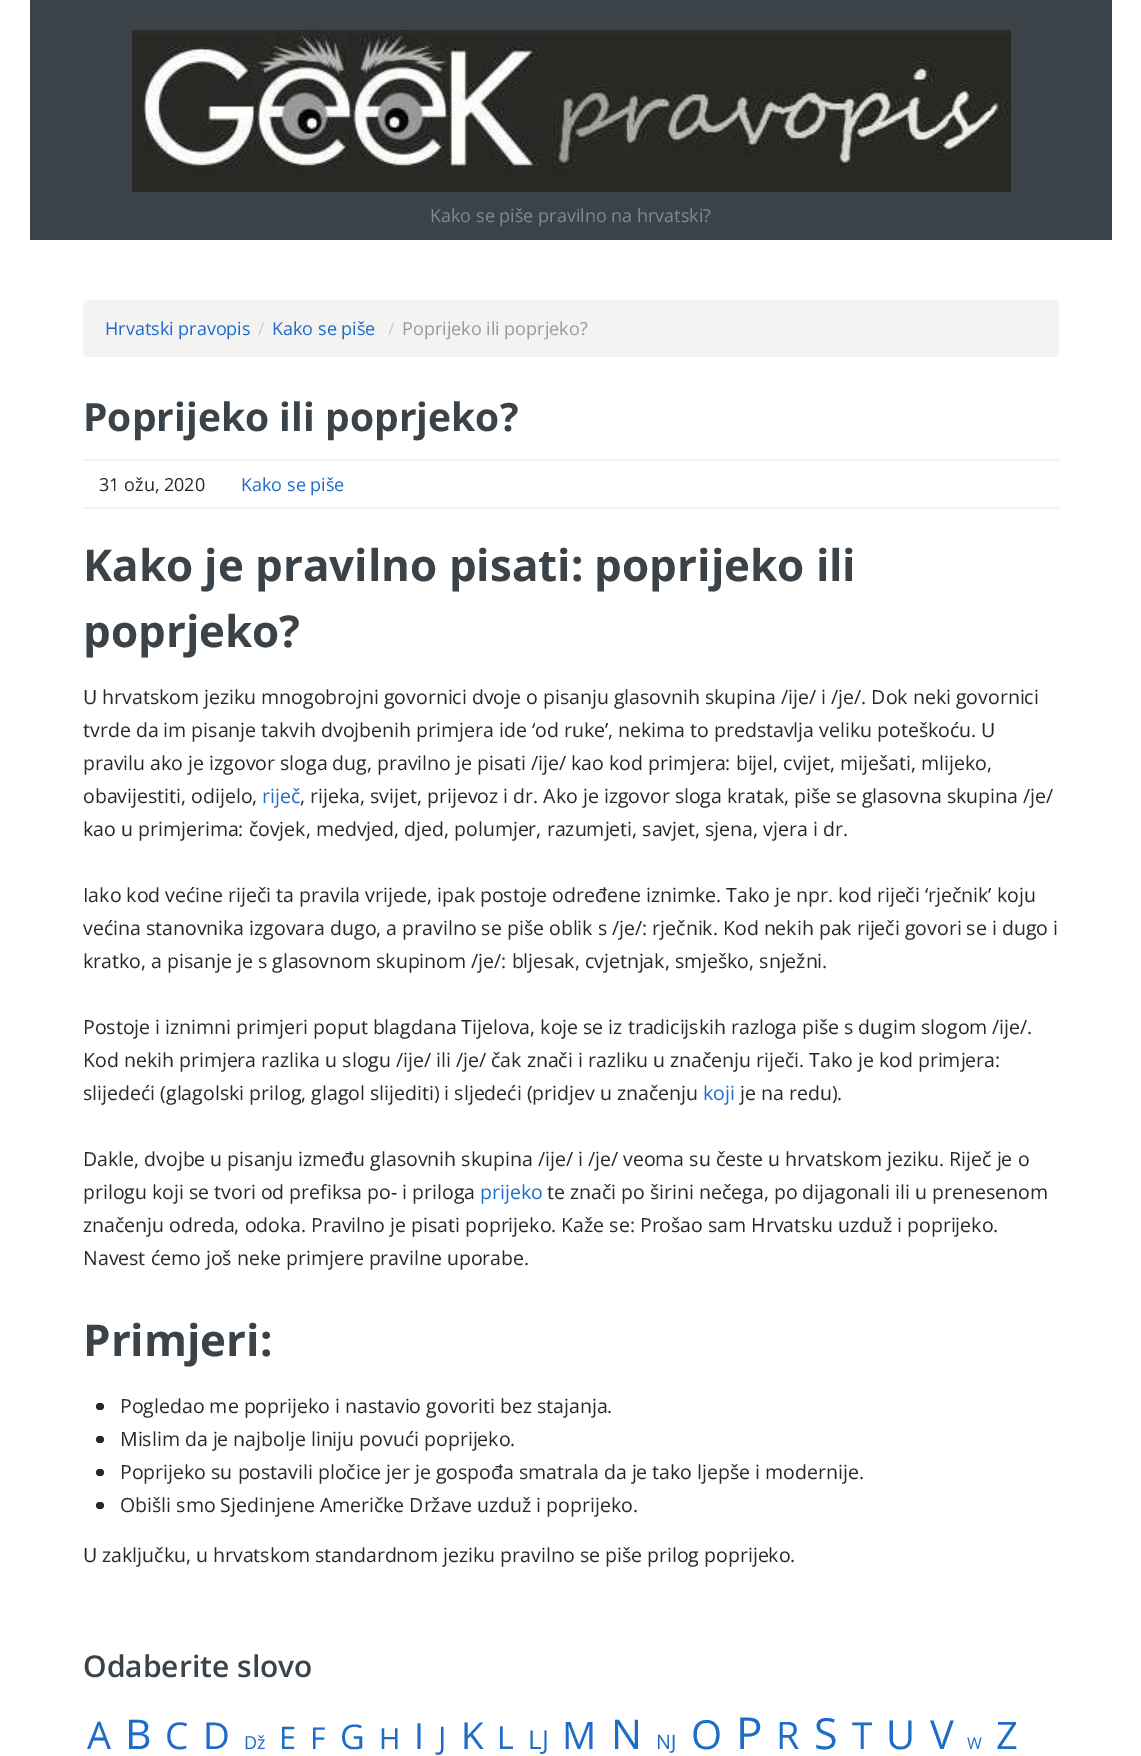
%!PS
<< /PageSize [1141 1756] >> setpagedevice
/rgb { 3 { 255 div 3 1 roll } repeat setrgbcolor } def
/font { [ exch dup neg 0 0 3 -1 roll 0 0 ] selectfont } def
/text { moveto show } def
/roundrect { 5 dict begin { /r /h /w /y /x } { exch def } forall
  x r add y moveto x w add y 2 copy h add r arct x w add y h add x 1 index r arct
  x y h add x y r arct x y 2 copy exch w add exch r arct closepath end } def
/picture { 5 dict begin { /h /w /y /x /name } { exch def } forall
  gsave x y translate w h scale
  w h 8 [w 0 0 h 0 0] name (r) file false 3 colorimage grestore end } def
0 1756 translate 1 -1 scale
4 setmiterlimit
255 255 255 rgb
0 0 1141 1756 rectfill
59 67 72 rgb
30 0 1082 240 rectfill
(img_01.rgb) 132 30 879 162 picture
245 242 242 rgb
83 300 976 57 6 roundrect fill
242 242 242 rgb
83 459 976 2 rectfill
83 507 976 2 rectfill
40 41 36 rgb
96 1403 8 7 3.5 roundrect fill
96 1436 8 7 3.5 roundrect fill
96 1469 8 7 3.5 roundrect fill
96 1502 8 7 3.5 roundrect fill
/OpenSans-Regular 18 font
129 138 144 rgb
(Kako se piše pravilno na hrvatski?) 430 222 text
29 108 198 rgb
(Hrvatski pravopis) 105 335 text
204 204 204 rgb
(/) 258 335 text
29 108 198 rgb
(Kako se piše) 272 335 text
204 204 204 rgb
(/) 388 335 text
153 153 153 rgb
(Poprijeko ili poprjeko?) 402 335 text
/OpenSans-Bold 39 font
59 67 72 rgb
(Poprijeko ili poprjeko?) 83 431 text
/OpenSans-Regular 18 font
40 41 36 rgb
(31 ožu, 2020) 99 491 text
29 108 198 rgb
(Kako se piše) 241 491 text
/OpenSans-Bold 43.9 font
59 67 72 rgb
(Kako je pravilno pisati: poprijeko ili) 83 581 text
(poprjeko?) 83 647 text
/OpenSans-Regular 19.5 font
40 41 36 rgb
(U hrvatskom jeziku mnogobrojni govornici dvoje o pisanju glasovnih skupina /ije/ i /je/. Dok neki govornici) 83 704 text
(tvrde da im pisanje takvih dvojbenih primjera ide ‘od ruke’, nekima to predstavlja veliku poteškoću. U) 83 737 text
(pravilu ako je izgovor sloga dug, pravilno je pisati /ije/ kao kod primjera: bijel, cvijet, miješati, mlijeko,) 83 770 text
(obavijestiti, odijelo,) 83 803 text
29 108 198 rgb
(riječ) 262 803 text
40 41 36 rgb
(, rijeka, svijet, prijevoz i dr. Ako je izgovor sloga kratak, piše se glasovna skupina /je/) 300 803 text
(kao u primjerima: čovjek, medvjed, djed, polumjer, razumjeti, savjet, sjena, vjera i dr.) 83 836 text
(Iako kod većine riječi ta pravila vrijede, ipak postoje određene iznimke. Tako je npr. kod riječi ‘rječnik’ koju) 83 902 text
(većina stanovnika izgovara dugo, a pravilno se piše oblik s /je/: rječnik. Kod nekih pak riječi govori se i dugo i) 83 935 text
(kratko, a pisanje je s glasovnom skupinom /je/: bljesak, cvjetnjak, smješko, snježni.) 83 968 text
(Postoje i iznimni primjeri poput blagdana Tijelova, koje se iz tradicijskih razloga piše s dugim slogom /ije/.) 83 1034 text
(Kod nekih primjera razlika u slogu /ije/ ili /je/ čak znači i razliku u značenju riječi. Tako je kod primjera:) 83 1067 text
(slijedeći \(glagolski prilog, glagol slijediti\) i sljedeći \(pridjev u značenju) 83 1100 text
29 108 198 rgb
(koji) 703 1100 text
40 41 36 rgb
(je na redu\).) 740 1100 text
(Dakle, dvojbe u pisanju između glasovnih skupina /ije/ i /je/ veoma su česte u hrvatskom jeziku. Riječ je o) 83 1166 text
(prilogu koji se tvori od prefiksa po- i priloga) 83 1199 text
29 108 198 rgb
(prijeko) 480 1199 text
40 41 36 rgb
(te znači po širini nečega, po dijagonali ili u prenesenom) 547 1199 text
(značenju odreda, odoka. Pravilno je pisati poprijeko. Kaže se: Prošao sam Hrvatsku uzduž i poprijeko.) 83 1232 text
(Navest ćemo još neke primjere pravilne uporabe.) 83 1265 text
/OpenSans-Bold 43.9 font
59 67 72 rgb
(Primjeri:) 83 1356 text
/OpenSans-Regular 19.5 font
40 41 36 rgb
(Pogledao me poprijeko i nastavio govoriti bez stajanja.) 120 1413 text
(Mislim da je najbolje liniju povući poprijeko.) 120 1446 text
(Poprijeko su postavili pločice jer je gospođa smatrala da je tako ljepše i modernije.) 120 1479 text
(Obišli smo Sjedinjene Američke Države uzduž i poprijeko.) 120 1512 text
(U zaključku, u hrvatskom standardnom jeziku pravilno se piše prilog poprijeko.) 83 1562 text
/OpenSans-SemiBold 30 font
59 67 72 rgb
(Odaberite slovo) 83 1677 text
/OpenSans-Regular 38 font
29 108 198 rgb
(A) 87 1749 text
/OpenSans-Regular 41 font
(B) 125 1749 text
/OpenSans-Regular 37 font
(C) 165 1749 text
(D) 203 1749 text
/OpenSans-Regular 18 font
(Dž) 244 1749 text
/OpenSans-Regular 31 font
(E) 279 1749 text
/OpenSans-Regular 30 font
(F) 310 1749 text
/OpenSans-Regular 34 font
(G) 340 1749 text
/OpenSans-Regular 29 font
(H) 379 1749 text
/OpenSans-Regular 36 font
(I) 414 1749 text
/OpenSans-Regular 31 font
(J) 438 1749 text
/OpenSans-Regular 37 font
(K) 461 1749 text
/OpenSans-Regular 32 font
(L) 497 1749 text
/OpenSans-Regular 26 font
(LJ) 528 1749 text
/OpenSans-Regular 38 font
(M) 562 1749 text
/OpenSans-Regular 41 font
(N) 611 1749 text
/OpenSans-Regular 20 font
(NJ) 656 1749 text
/OpenSans-Regular 40 font
(O) 691 1749 text
/OpenSans-Regular 44 font
(P) 736 1749 text
/OpenSans-Regular 38 font
(R) 776 1749 text
/OpenSans-Regular 43 font
(S) 814 1749 text
/OpenSans-Regular 37 font
(T) 852 1749 text
/OpenSans-Regular 40 font
(U) 886 1749 text
(V) 930 1749 text
/OpenSans-Regular 16 font
(W) 967 1749 text
/OpenSans-Regular 38 font
(Z) 996 1749 text
showpage
